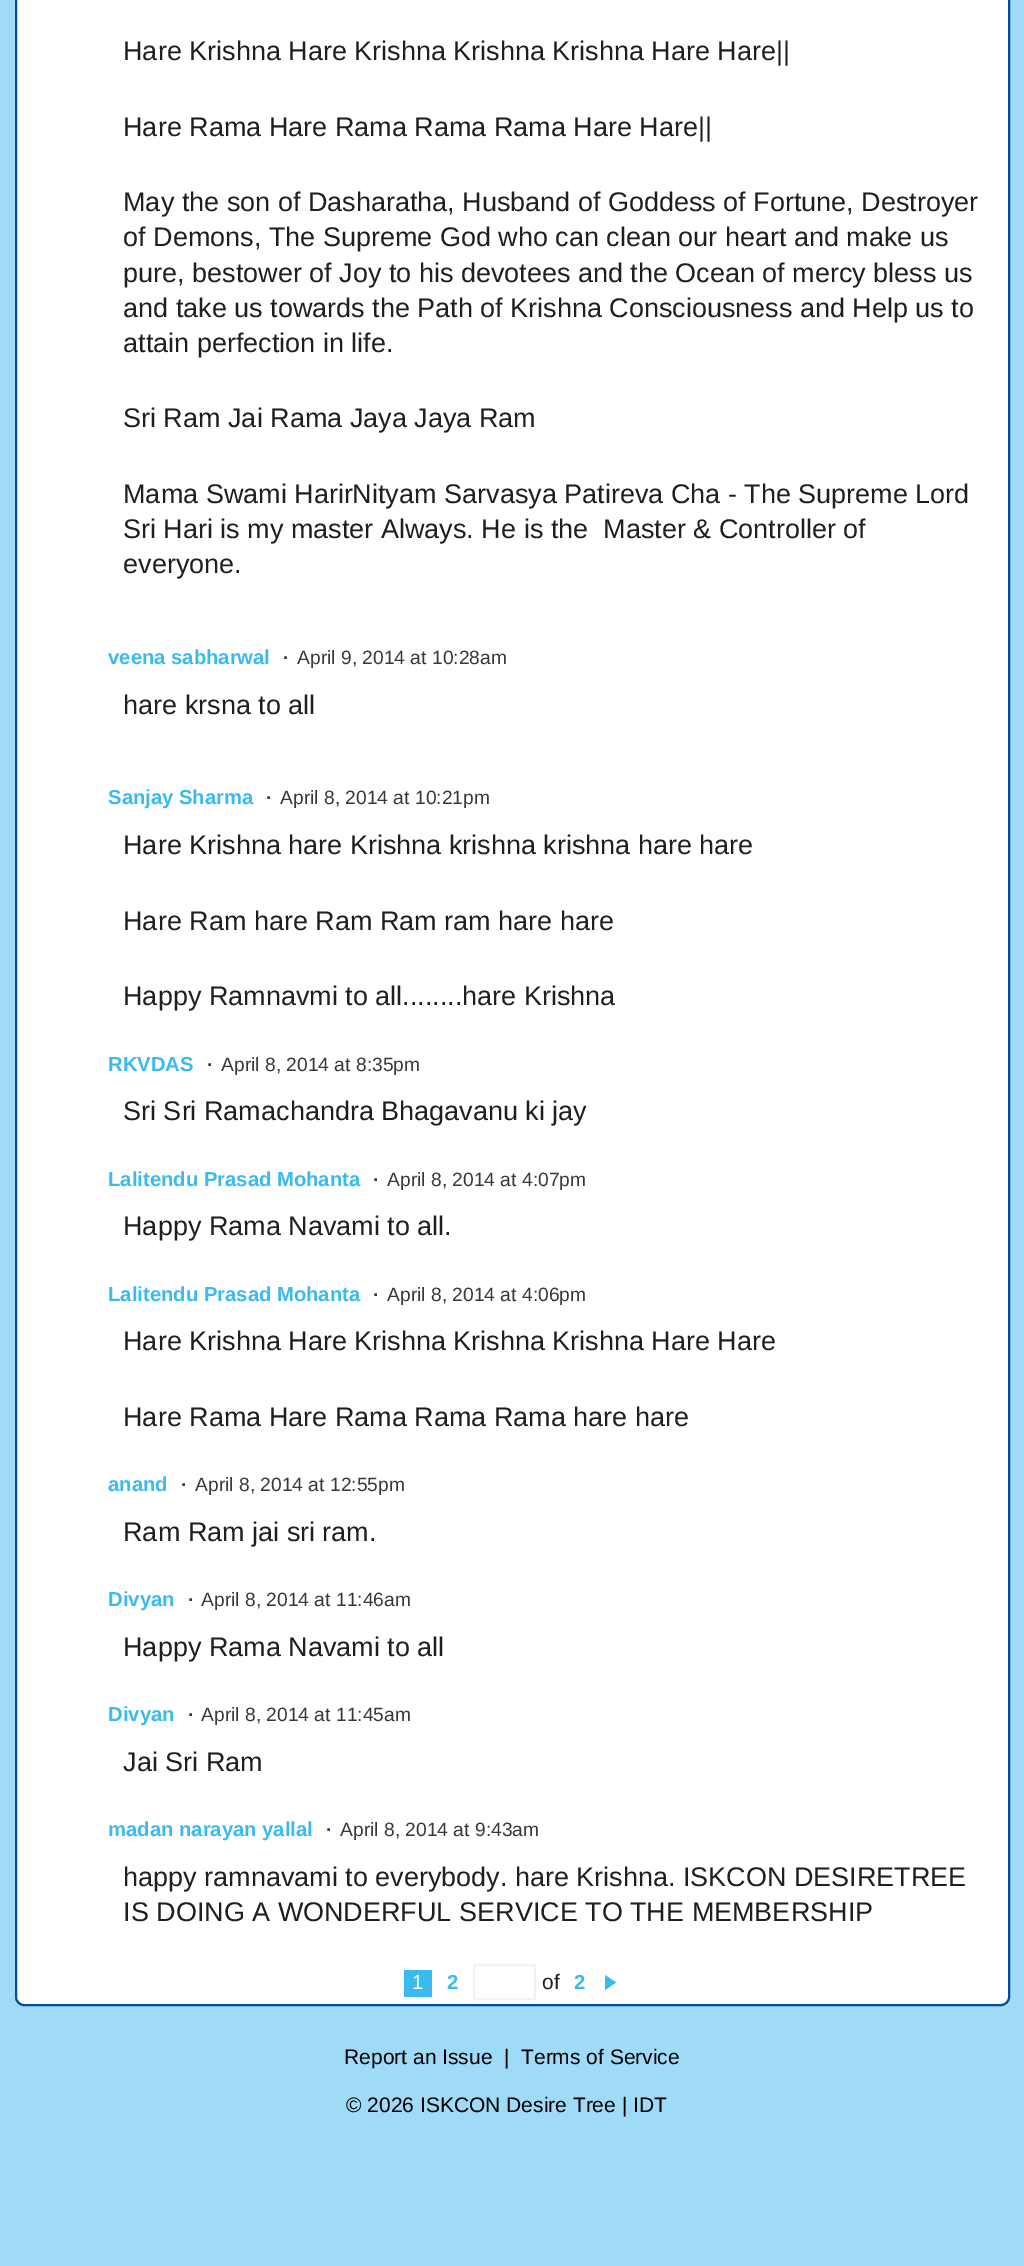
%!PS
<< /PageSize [1024 2266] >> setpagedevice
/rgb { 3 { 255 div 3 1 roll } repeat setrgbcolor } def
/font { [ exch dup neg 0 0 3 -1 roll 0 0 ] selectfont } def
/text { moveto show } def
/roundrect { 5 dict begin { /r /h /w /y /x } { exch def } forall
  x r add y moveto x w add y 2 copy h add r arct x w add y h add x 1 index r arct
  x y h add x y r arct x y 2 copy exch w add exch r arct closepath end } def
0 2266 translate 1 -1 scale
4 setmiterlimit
159 218 247 rgb
0 0 1024 2266 rectfill
255 255 255 rgb
16 -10 993 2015 8 roundrect gsave fill grestore
0 77 159 rgb
2 setlinewidth
stroke
59 186 240 rgb
404 1970 28 27 rectfill
243 243 243 rgb
474 1965 61 34 rectstroke
59 186 240 rgb
616 1982.5 moveto -11 7.5 rlineto 0 -15 rlineto closepath fill
/LiberationSans-Regular 27 font
31 31 31 rgb
(Hare Krishna Hare Krishna Krishna Krishna Hare Hare||) 123 60 text
(Hare Rama Hare Rama Rama Rama Hare Hare||) 123 136 text
(May the son of Dasharatha, Husband of Goddess of Fortune, Destroyer) 123 211 text
(of Demons, The Supreme God who can clean our heart and make us) 123 246 text
(pure, bestower of Joy to his devotees and the Ocean of mercy bless us) 123 282 text
(and take us towards the Path of Krishna Consciousness and Help us to) 123 317 text
(attain perfection in life.) 123 352 text
(Sri Ram Jai Rama Jaya Jaya Ram) 123 427 text
(Mama Swami HarirNityam Sarvasya Patireva Cha - The Supreme Lord) 123 503 text
(Sri Hari is my master Always. He is the  Master & Controller of) 123 538 text
(everyone.) 123 573 text
/LiberationSans-Bold 20.25 font
59 186 240 rgb
(veena sabharwal) 108 664 text
/LiberationSans-Bold 19.25 font
57 57 57 rgb
(·) 283 664 text
/LiberationSans-Regular 19.25 font
(April 9, 2014 at 10:28am) 297 664 text
/LiberationSans-Regular 27 font
31 31 31 rgb
(hare krsna to all) 123 714 text
/LiberationSans-Bold 20.25 font
59 186 240 rgb
(Sanjay Sharma) 108 804 text
/LiberationSans-Bold 19.25 font
57 57 57 rgb
(·) 266 804 text
/LiberationSans-Regular 19.25 font
(April 8, 2014 at 10:21pm) 280 804 text
/LiberationSans-Regular 27 font
31 31 31 rgb
(Hare Krishna hare Krishna krishna krishna hare hare) 123 854 text
(Hare Ram hare Ram Ram ram hare hare) 123 930 text
(Happy Ramnavmi to all........hare Krishna) 123 1005 text
/LiberationSans-Bold 20.25 font
59 186 240 rgb
(RKVDAS) 108 1071 text
/LiberationSans-Bold 19.25 font
57 57 57 rgb
(·) 207 1071 text
/LiberationSans-Regular 19.25 font
(April 8, 2014 at 8:35pm) 221 1071 text
/LiberationSans-Regular 27 font
31 31 31 rgb
(Sri Sri Ramachandra Bhagavanu ki jay) 123 1120 text
/LiberationSans-Bold 20.25 font
59 186 240 rgb
(Lalitendu Prasad Mohanta) 108 1186 text
/LiberationSans-Bold 19.25 font
57 57 57 rgb
(·) 373 1186 text
/LiberationSans-Regular 19.25 font
(April 8, 2014 at 4:07pm) 387 1186 text
/LiberationSans-Regular 27 font
31 31 31 rgb
(Happy Rama Navami to all.) 123 1235 text
/LiberationSans-Bold 20.25 font
59 186 240 rgb
(Lalitendu Prasad Mohanta) 108 1301 text
/LiberationSans-Bold 19.25 font
57 57 57 rgb
(·) 373 1301 text
/LiberationSans-Regular 19.25 font
(April 8, 2014 at 4:06pm) 387 1301 text
/LiberationSans-Regular 27 font
31 31 31 rgb
(Hare Krishna Hare Krishna Krishna Krishna Hare Hare) 123 1350 text
(Hare Rama Hare Rama Rama Rama hare hare) 123 1426 text
/LiberationSans-Bold 20.25 font
59 186 240 rgb
(anand) 108 1491 text
/LiberationSans-Bold 19.25 font
57 57 57 rgb
(·) 181 1491 text
/LiberationSans-Regular 19.25 font
(April 8, 2014 at 12:55pm) 195 1491 text
/LiberationSans-Regular 27 font
31 31 31 rgb
(Ram Ram jai sri ram.) 123 1541 text
/LiberationSans-Bold 20.25 font
59 186 240 rgb
(Divyan) 108 1606 text
/LiberationSans-Bold 19.25 font
57 57 57 rgb
(·) 188 1606 text
/LiberationSans-Regular 19.25 font
(April 8, 2014 at 11:46am) 201 1606 text
/LiberationSans-Regular 27 font
31 31 31 rgb
(Happy Rama Navami to all) 123 1656 text
/LiberationSans-Bold 20.25 font
59 186 240 rgb
(Divyan) 108 1721 text
/LiberationSans-Bold 19.25 font
57 57 57 rgb
(·) 188 1721 text
/LiberationSans-Regular 19.25 font
(April 8, 2014 at 11:45am) 201 1721 text
/LiberationSans-Regular 27 font
31 31 31 rgb
(Jai Sri Ram) 123 1771 text
/LiberationSans-Bold 20.25 font
59 186 240 rgb
(madan narayan yallal) 108 1836 text
/LiberationSans-Bold 19.25 font
57 57 57 rgb
(·) 326 1836 text
/LiberationSans-Regular 19.25 font
(April 8, 2014 at 9:43am) 340 1836 text
/LiberationSans-Regular 27 font
31 31 31 rgb
(happy ramnavami to everybody. hare Krishna. ISKCON DESIRETREE) 123 1886 text
(IS DOING A WONDERFUL SERVICE TO THE MEMBERSHIP) 123 1921 text
/LiberationSans-Regular 20.25 font
255 255 255 rgb
(1) 412 1989 text
/LiberationSans-Bold 20.25 font
59 186 240 rgb
(2) 447 1989 text
/LiberationSans-Regular 21 font
31 31 31 rgb
(of) 542 1989 text
/LiberationSans-Bold 20.25 font
59 186 240 rgb
(2) 574 1989 text
/LiberationSans-Regular 21 font
0 0 0 rgb
(Report an Issue) 344 2064 text
(|) 504 2064 text
(Terms of Service) 521 2064 text
(© 2026 ISKCON Desire Tree | IDT) 346 2112 text
showpage
